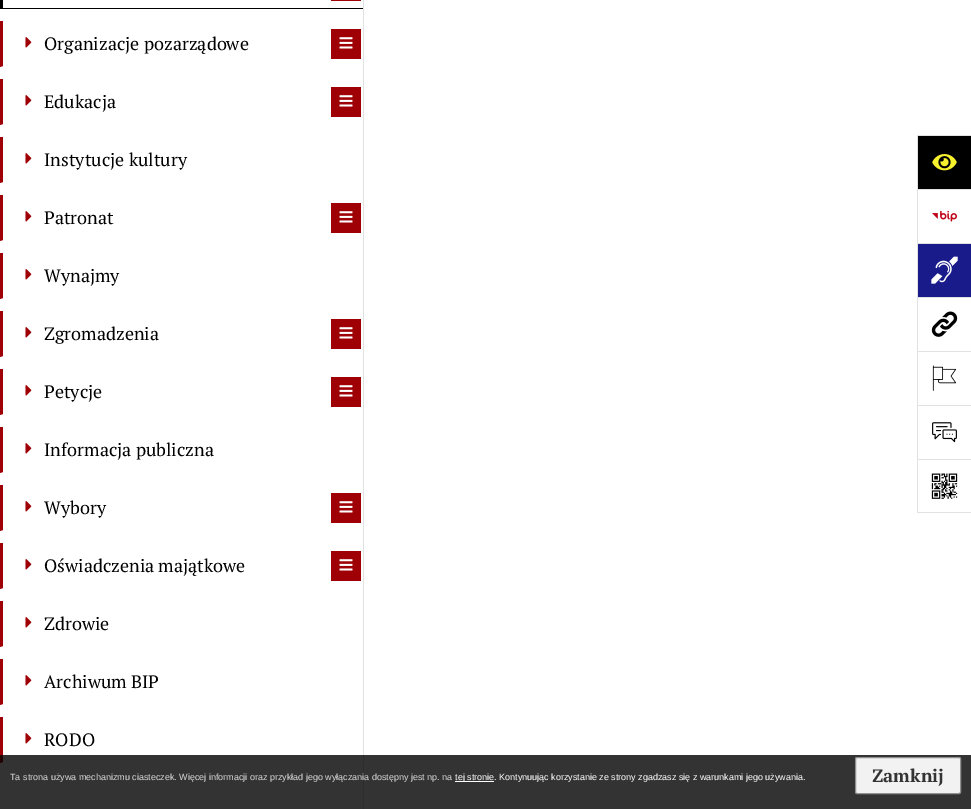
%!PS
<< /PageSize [971 809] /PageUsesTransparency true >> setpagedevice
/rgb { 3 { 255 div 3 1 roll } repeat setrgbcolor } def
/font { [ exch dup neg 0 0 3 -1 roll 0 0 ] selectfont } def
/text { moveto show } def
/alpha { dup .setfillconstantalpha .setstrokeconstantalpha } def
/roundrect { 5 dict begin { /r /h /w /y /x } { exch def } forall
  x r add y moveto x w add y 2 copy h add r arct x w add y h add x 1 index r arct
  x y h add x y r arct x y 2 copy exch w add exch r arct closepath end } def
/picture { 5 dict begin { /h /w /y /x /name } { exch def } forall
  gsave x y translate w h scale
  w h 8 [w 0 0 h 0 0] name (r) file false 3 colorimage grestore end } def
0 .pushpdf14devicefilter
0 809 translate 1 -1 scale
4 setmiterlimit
255 255 255 rgb
0 0 971 809 rectfill
0 0 0 rgb
0 8 364 1 rectfill
0 0 3 9 rectfill
158 0 5 rgb
331 0 30 1 rectfill
0 67 moveto 0 -46 rlineto 3 0 rlineto 0 45 rlineto closepath fill
(img_01.rgb) 25 37 7 11 picture
331 29 30 30 rectfill
(img_02.rgb) 339 37 14 12 picture
0 125 moveto 0 -46 rlineto 3 0 rlineto 0 45 rlineto closepath fill
(img_01.rgb) 25 95 7 11 picture
331 87 30 30 rectfill
(img_02.rgb) 339 95 14 12 picture
0 183 moveto 0 -46 rlineto 3 0 rlineto 0 45 rlineto closepath fill
(img_01.rgb) 25 153 7 11 picture
0 241 moveto 0 -46 rlineto 3 0 rlineto 0 45 rlineto closepath fill
(img_01.rgb) 25 211 7 11 picture
331 203 30 30 rectfill
(img_02.rgb) 339 211 14 12 picture
0 299 moveto 0 -46 rlineto 3 0 rlineto 0 45 rlineto closepath fill
(img_01.rgb) 25 269 7 11 picture
0 357 moveto 0 -46 rlineto 3 0 rlineto 0 45 rlineto closepath fill
(img_01.rgb) 25 327 7 11 picture
331 319 30 30 rectfill
(img_02.rgb) 339 327 14 12 picture
0 415 moveto 0 -46 rlineto 3 0 rlineto 0 45 rlineto closepath fill
(img_01.rgb) 25 385 7 11 picture
331 377 30 30 rectfill
(img_02.rgb) 339 385 14 12 picture
0 473 moveto 0 -46 rlineto 3 0 rlineto 0 45 rlineto closepath fill
(img_01.rgb) 25 443 7 11 picture
0 531 moveto 0 -46 rlineto 3 0 rlineto 0 45 rlineto closepath fill
(img_01.rgb) 25 501 7 11 picture
331 493 30 30 rectfill
(img_02.rgb) 339 501 14 12 picture
0 589 moveto 0 -46 rlineto 3 0 rlineto 0 45 rlineto closepath fill
(img_01.rgb) 25 559 7 11 picture
331 551 30 30 rectfill
(img_02.rgb) 339 559 14 12 picture
0 647 moveto 0 -46 rlineto 3 0 rlineto 0 45 rlineto closepath fill
(img_01.rgb) 25 617 7 11 picture
0 705 moveto 0 -46 rlineto 3 0 rlineto 0 45 rlineto closepath fill
(img_01.rgb) 25 675 7 11 picture
0 763 moveto 0 -46 rlineto 3 0 rlineto 0 45 rlineto closepath fill
(img_01.rgb) 25 733 7 11 picture
225 225 225 rgb
363 0 1 809 rectfill
0 0 0 rgb
918 136 53 53 rectfill
225 225 225 rgb
917 135 54 1 rectfill
917 135 1 54 rectfill
(img_03.rgb) 932 154 25 17 picture
917 189 54 1 rectfill
917 189 1 54 rectfill
(img_04.rgb) 932 210 25 12 picture
25 27 138 rgb
918 244 53 53 rectfill
225 225 225 rgb
917 243 54 1 rectfill
917 243 1 54 rectfill
(img_05.rgb) 931 256 27 28 picture
917 297 54 1 rectfill
917 297 1 54 rectfill
(img_06.rgb) 931 311 27 26 picture
917 351 54 1 rectfill
917 351 1 54 rectfill
(img_07.rgb) 932 365 25 26 picture
917 405 54 1 rectfill
917 405 1 54 rectfill
(img_08.rgb) 932 422 25 21 picture
917 459 54 1 rectfill
917 512 54 1 rectfill
917 459 1 54 rectfill
(img_09.rgb) 931 473 27 26 picture
0.8 alpha
0 0 0 rgb
0 755 971 54 rectfill
1 alpha
255 255 255 rgb
455 781 39 1 rectfill
242 242 242 rgb
855.5 757.5 105 36 1.5 roundrect gsave fill grestore
145 145 145 rgb
stroke
/PTSerif-Regular 18 font
0 0 0 rgb
(Organizacje pozarządowe) 44 50 text
(Edukacja) 44 108 text
(Instytucje kultury) 44 166 text
(Patronat) 44 224 text
(Wynajmy) 44 282 text
(Zgromadzenia) 44 340 text
(Petycje) 44 398 text
(Informacja publiczna) 44 456 text
(Wybory) 44 514 text
(Oświadczenia majątkowe) 44 572 text
(Zdrowie) 44 630 text
(Archiwum BIP) 44 688 text
(RODO) 44 746 text
/LiberationSans-Regular 9 font
214 214 214 rgb
(Ta strona używa mechanizmu ciasteczek. Więcej informacji oraz przykład jego wyłączania dostępny jest np. na) 10 780 text
255 255 255 rgb
(tej stronie. Kontynuując korzystanie ze strony zgadzasz się z warunkami jego używania.) 455 780 text
/PTSerif-Bold 18 font
51 51 51 rgb
(Zamknij) 872 782 text
.poppdf14devicefilter showpage
